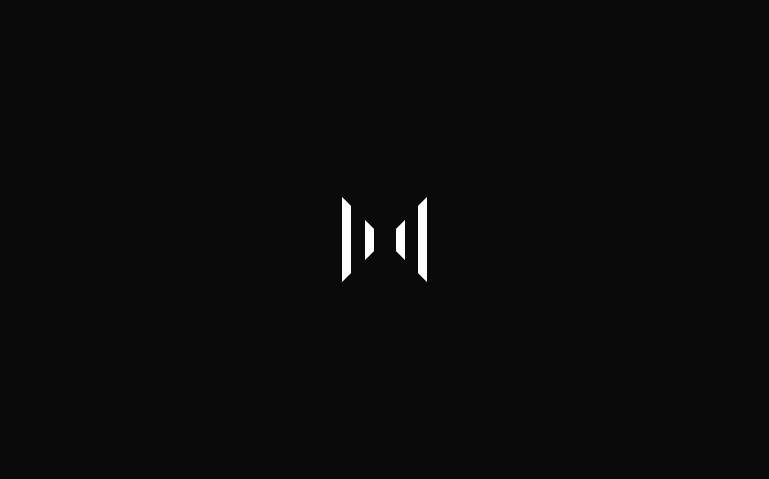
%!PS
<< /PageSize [769 479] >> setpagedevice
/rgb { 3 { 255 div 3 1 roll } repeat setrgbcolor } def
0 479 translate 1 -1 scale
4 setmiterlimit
10 10 10 rgb
0 0 769 479 rectfill
255 255 255 rgb
427 197 moveto 0 85 rlineto -9 -9 rlineto 0 -67 rlineto closepath fill
342 282 moveto 0 -85 rlineto 9 9 rlineto 0 67 rlineto closepath fill
405 220 moveto 0 40 rlineto -9 -9 rlineto 0 -22 rlineto closepath 365 260 moveto 0 -40 rlineto 9 9 rlineto 0 22 rlineto closepath fill
showpage
